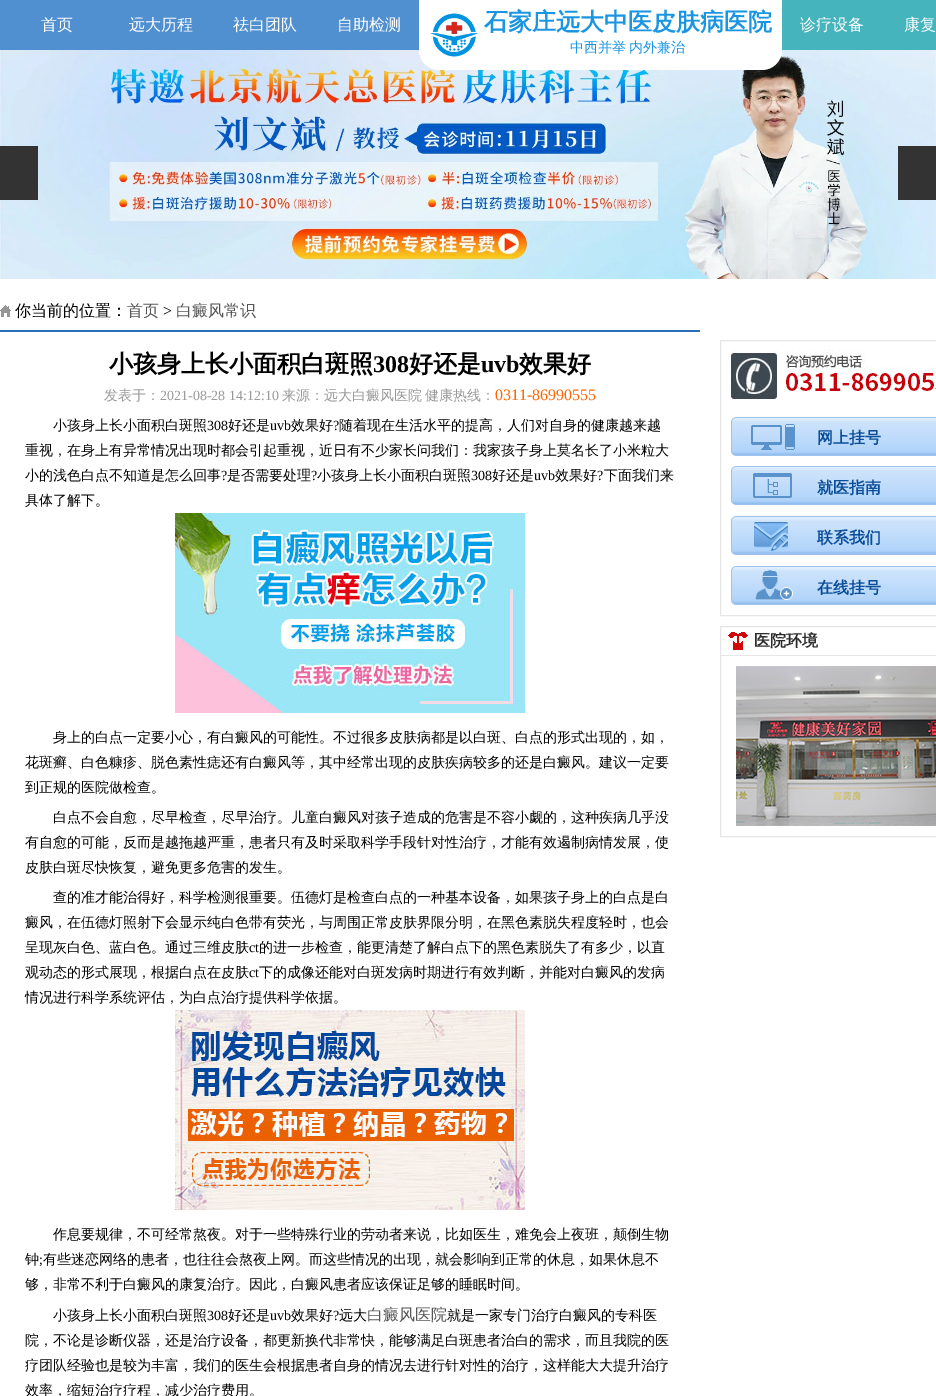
%!PS
<< /PageSize [936 1396] >> setpagedevice
/rgb { 3 { 255 div 3 1 roll } repeat setrgbcolor } def
/font { [ exch dup neg 0 0 3 -1 roll 0 0 ] selectfont } def
/text { moveto show } def
/picture { 5 dict begin { /h /w /y /x /name } { exch def } forall
  gsave x y translate w h scale
  w h 8 [w 0 0 h 0 0] name (r) file false 3 colorimage grestore end } def
0 1396 translate 1 -1 scale
4 setmiterlimit
255 255 255 rgb
0 0 936 1396 rectfill
80 144 208 rgb
0 0 419 50 rectfill
69 180 189 rgb
782 0 154 50 rectfill
(img_02.rgb) 0 50 936 229 picture
255 255 255 rgb
419 0 moveto 363 0 rlineto 0 50 rlineto 0 11 -9 20 -20 20 rcurveto -323 0 rlineto -11 0 -20 -9 -20 -20 rcurveto closepath fill
(img_01.rgb) 430 13 48 44 picture
51 51 51 rgb
0 146 38 54 rectfill
898 146 38 54 rectfill
(img_03.rgb) 0 305 11 12 picture
46 110 182 rgb
0 330 700 2 rectfill
(img_04.rgb) 175 513 350 200 picture
(img_05.rgb) 175 1010 350 200 picture
230 230 230 rgb
720.5 340.5 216 275 rectstroke
(img_06.rgb) 729 349 207 51 picture
(img_07.rgb) 731 417 205 188 picture
720.5 626.5 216 210 rectstroke
(img_08.rgb) 728 632 20 18 picture
721 655 215 1 rectfill
(img_09.rgb) 736 666 200 160 picture
/WenQuanYiZenHei-Medium 16 font
255 255 255 rgb
(首页) 41 30 text
(远大历程) 129 30 text
(祛白团队) 233 30 text
(自助检测) 337 30 text
/WenQuanYiZenHei-Bold 24 font
25 149 226 rgb
(石家庄远大中医皮肤病医院) 484 30 text
/WenQuanYiZenHei-Medium 14 font
570 52 moveto -1 0 32 (中西并举 内外兼治) widthshow
/WenQuanYiZenHei-Medium 16 font
255 255 255 rgb
(诊疗设备) 800 30 text
(康复) 904 30 text
0 0 0 rgb
(你当前的位置：) 15 316 text
85 85 85 rgb
(首页) 127 316 text
/LiberationSerif-Regular 16 font
0 0 0 rgb
(>) 163 316 text
/WenQuanYiZenHei-Medium 16 font
85 85 85 rgb
(白癜风常识) 176 316 text
/WenQuanYiZenHei-Bold 24 font
0 0 0 rgb
(小孩身上长小面积白斑照) 109 372 text
/LiberationSerif-Bold 24 font
(308) 373 372 text
/WenQuanYiZenHei-Bold 24 font
(好还是) 409 372 text
/LiberationSerif-Bold 24 font
(uvb) 481 372 text
/WenQuanYiZenHei-Bold 24 font
(效果好) 519 372 text
/WenQuanYiZenHei-Medium 14 font
153 153 153 rgb
(发表于：) 104 400 text
/LiberationSerif-Regular 14 font
(2021-08-28 14:12:10) 160 400 text
/WenQuanYiZenHei-Medium 14 font
(来源：远大白癜风医院) 282 400 text
(健康热线：) 425 400 text
/LiberationSerif-Regular 16 font
255 102 0 rgb
(0311-86990555) 495 400 text
/WenQuanYiZenHei-Medium 14 font
0 0 0 rgb
(小孩身上长小面积白斑照) 53 430 text
/LiberationSerif-Regular 14 font
(308) 207 430 text
/WenQuanYiZenHei-Medium 14 font
(好还是) 228 430 text
/LiberationSerif-Regular 14 font
(uvb) 270 430 text
/WenQuanYiZenHei-Medium 14 font
(效果好) 291 430 text
/LiberationSerif-Regular 14 font
(?) 333 430 text
/WenQuanYiZenHei-Medium 14 font
(随着现在生活水平的提高，人们对自身的健康越来越) 339 430 text
(重视，在身上有异常情况出现时都会引起重视，近日有不少家长问我们：我家孩子身上莫名长了小米粒大) 25 455 text
(小的浅色白点不知道是怎么回事) 25 480 text
/LiberationSerif-Regular 14 font
(?) 221 480 text
/WenQuanYiZenHei-Medium 14 font
(是否需要处理) 227 480 text
/LiberationSerif-Regular 14 font
(?) 311 480 text
/WenQuanYiZenHei-Medium 14 font
(小孩身上长小面积白斑照) 317 480 text
/LiberationSerif-Regular 14 font
(308) 471 480 text
/WenQuanYiZenHei-Medium 14 font
(好还是) 492 480 text
/LiberationSerif-Regular 14 font
(uvb) 534 480 text
/WenQuanYiZenHei-Medium 14 font
(效果好) 555 480 text
/LiberationSerif-Regular 14 font
(?) 597 480 text
/WenQuanYiZenHei-Medium 14 font
(下面我们来) 604 480 text
(具体了解下。) 25 505 text
(身上的白点一定要小心，有白癜风的可能性。不过很多皮肤病都是以白斑、白点的形式出现的，如，) 53 742 text
(花斑癣、白色糠疹、脱色素性痣还有白癜风等，其中经常出现的皮肤疾病较多的还是白癜风。建议一定要) 25 767 text
(到正规的医院做检查。) 25 792 text
(白点不会自愈，尽早检查，尽早治疗。儿童白癜风对孩子造成的危害是不容小觑的，这种疾病几乎没) 53 822 text
(有自愈的可能，反而是越拖越严重，患者只有及时采取科学手段针对性治疗，才能有效遏制病情发展，使) 25 847 text
(皮肤白斑尽快恢复，避免更多危害的发生。) 25 872 text
(查的准才能治得好，科学检测很重要。伍德灯是检查白点的一种基本设备，如果孩子身上的白点是白) 53 902 text
(癜风，在伍德灯照射下会显示纯白色带有荧光，与周围正常皮肤界限分明，在黑色素脱失程度轻时，也会) 25 927 text
(呈现灰白色、蓝白色。通过三维皮肤) 25 952 text
/LiberationSerif-Regular 14 font
(ct) 249 952 text
/WenQuanYiZenHei-Medium 14 font
(的进一步检查，能更清楚了解白点下的黑色素脱失了有多少，以直) 259 952 text
(观动态的形式展现，根据白点在皮肤) 25 977 text
/LiberationSerif-Regular 14 font
(ct) 249 977 text
/WenQuanYiZenHei-Medium 14 font
(下的成像还能对白斑发病时期进行有效判断，并能对白癜风的发病) 259 977 text
(情况进行科学系统评估，为白点治疗提供科学依据。) 25 1002 text
(作息要规律，不可经常熬夜。对于一些特殊行业的劳动者来说，比如医生，难免会上夜班，颠倒生物) 53 1239 text
(钟) 25 1264 text
/LiberationSerif-Regular 14 font
(;) 39 1264 text
/WenQuanYiZenHei-Medium 14 font
(有些迷恋网络的患者，也往往会熬夜上网。而这些情况的出现，就会影响到正常的休息，如果休息不) 43 1264 text
(够，非常不利于白癜风的康复治疗。因此，白癜风患者应该保证足够的睡眠时间。) 25 1289 text
(小孩身上长小面积白斑照) 53 1320 text
/LiberationSerif-Regular 14 font
(308) 207 1320 text
/WenQuanYiZenHei-Medium 14 font
(好还是) 228 1320 text
/LiberationSerif-Regular 14 font
(uvb) 270 1320 text
/WenQuanYiZenHei-Medium 14 font
(效果好) 291 1320 text
/LiberationSerif-Regular 14 font
(?) 333 1320 text
/WenQuanYiZenHei-Medium 14 font
(远大) 339 1320 text
/WenQuanYiZenHei-Medium 16 font
85 85 85 rgb
(白癜风医院) 367 1320 text
/WenQuanYiZenHei-Medium 14 font
0 0 0 rgb
(就是一家专门治疗白癜风的专科医) 447 1320 text
(院，不论是诊断仪器，还是治疗设备，都更新换代非常快，能够满足白斑患者治白的需求，而且我院的医) 25 1345 text
(疗团队经验也是较为丰富，我们的医生会根据患者自身的情况去进行针对性的治疗，这样能大大提升治疗) 25 1370 text
(效率，缩短治疗疗程，减少治疗费用。) 25 1395 text
/WenQuanYiZenHei-Bold 16 font
10 77 152 rgb
(网上挂号) 817 443 text
(就医指南) 817 493 text
(联系我们) 817 543 text
(在线挂号) 817 593 text
43 43 43 rgb
(医院环境) 754 646 text
showpage
